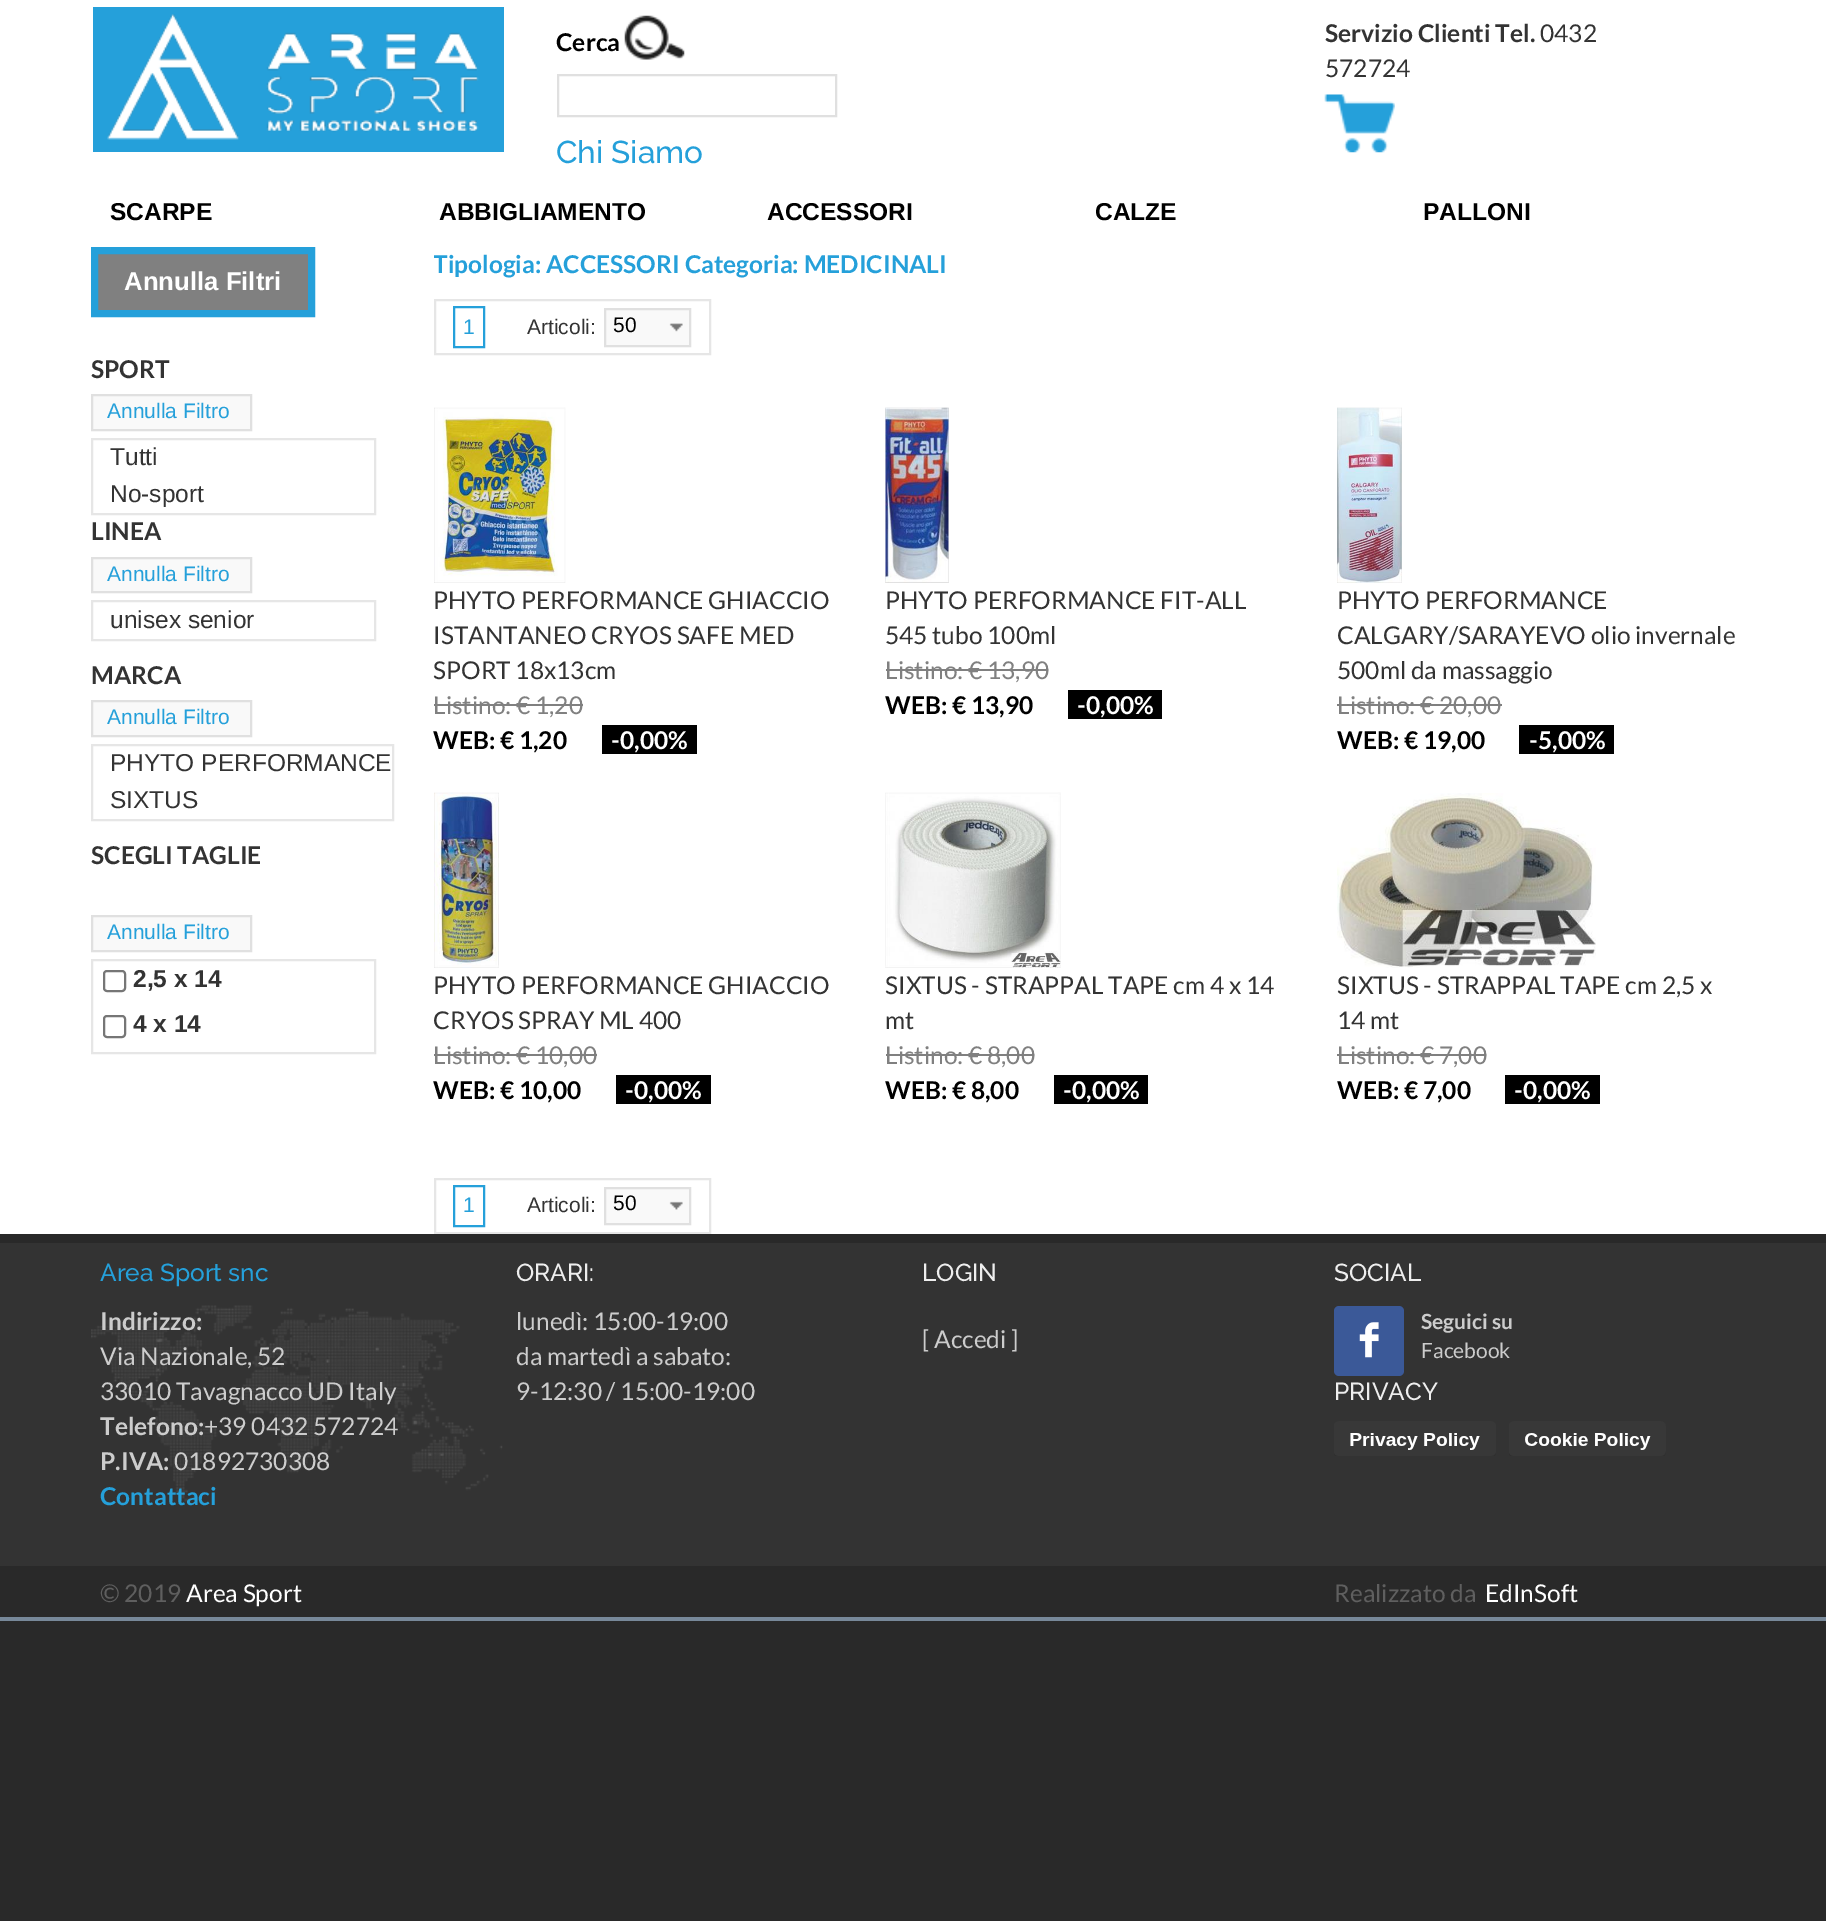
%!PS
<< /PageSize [1826 1921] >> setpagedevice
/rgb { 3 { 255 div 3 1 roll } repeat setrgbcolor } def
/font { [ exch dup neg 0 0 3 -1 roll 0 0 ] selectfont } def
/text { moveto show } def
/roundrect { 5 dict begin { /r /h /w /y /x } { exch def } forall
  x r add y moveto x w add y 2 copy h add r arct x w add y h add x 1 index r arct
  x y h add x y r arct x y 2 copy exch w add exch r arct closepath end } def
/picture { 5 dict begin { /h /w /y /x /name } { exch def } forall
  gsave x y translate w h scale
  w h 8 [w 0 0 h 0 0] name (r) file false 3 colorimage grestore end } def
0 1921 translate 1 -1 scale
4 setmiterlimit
255 255 255 rgb
0 0 1826 1921 rectfill
37 160 218 rgb
93 7 411 145 rectfill
(img_01.rgb) 107 14 372 126 picture
(img_02.rgb) 624 15 61 45 picture
224 224 224 rgb
2 setlinewidth
558 75 278 41 rectstroke
(img_03.rgb) 1324 94 71 59 picture
128 128 128 rgb
94.5 250.5 moveto 217 0 rlineto 0 63 rlineto -217 0 rlineto closepath gsave fill grestore
37 160 218 rgb
7 setlinewidth
stroke
249 249 249 rgb
92 395 moveto 159 0 rlineto 0 35 rlineto -159 0 rlineto closepath gsave fill grestore
224 224 224 rgb
2 setlinewidth
stroke
230 230 230 rgb
92 439 283 75 rectstroke
249 249 249 rgb
92 558 moveto 159 0 rlineto 0 34 rlineto -159 0 rlineto closepath gsave fill grestore
224 224 224 rgb
stroke
230 230 230 rgb
92 601 283 39 rectstroke
249 249 249 rgb
92 701 moveto 159 0 rlineto 0 35 rlineto -159 0 rlineto closepath gsave fill grestore
224 224 224 rgb
stroke
230 230 230 rgb
92 745 301 75 rectstroke
249 249 249 rgb
92 916 moveto 159 0 rlineto 0 35 rlineto -159 0 rlineto closepath gsave fill grestore
224 224 224 rgb
stroke
230 230 230 rgb
92 960 283 93 rectstroke
118 118 118 rgb
104 971 21 20 3 roundrect stroke
104 1016 21 21 3 roundrect stroke
230 230 230 rgb
435 300 275 54 rectstroke
37 160 218 rgb
454 307 30 40 rectstroke
249 249 249 rgb
605 309 moveto 85 0 rlineto 0 37 rlineto -85 0 rlineto closepath gsave fill grestore
224 224 224 rgb
stroke
(img_04.rgb) 669 323 14 9 picture
(img_05.rgb) 434 407 132 176 picture
128 128 128 rgb
434 704 149 2 rectfill
0 0 0 rgb
602 725 95 29 rectfill
(img_06.rgb) 885 407 64 176 picture
128 128 128 rgb
886 669 162 2 rectfill
0 0 0 rgb
1068 690 94 29 rectfill
(img_07.rgb) 1337 407 65 176 picture
128 128 128 rgb
1337 704 165 2 rectfill
0 0 0 rgb
1519 725 95 29 rectfill
(img_08.rgb) 434 792 65 176 picture
128 128 128 rgb
434 1054 163 2 rectfill
0 0 0 rgb
616 1075 95 29 rectfill
(img_09.rgb) 885 792 176 176 picture
128 128 128 rgb
886 1054 148 2 rectfill
0 0 0 rgb
1054 1075 94 29 rectfill
(img_10.rgb) 1337 793 259 175 picture
128 128 128 rgb
1337 1054 149 2 rectfill
0 0 0 rgb
1505 1075 95 29 rectfill
230 230 230 rgb
435 1179 275 54 rectstroke
37 160 218 rgb
454 1186 30 40 rectstroke
249 249 249 rgb
605 1188 moveto 85 0 rlineto 0 36 rlineto -85 0 rlineto closepath gsave fill grestore
224 224 224 rgb
stroke
(img_11.rgb) 669 1201 14 9 picture
51 51 51 rgb
0 1243 1826 323 rectfill
41 41 41 rgb
0 1234 1826 9 rectfill
(img_12.rgb) 91 1305 412 197 picture
59 89 152 rgb
1334 1306 70 70 5 roundrect fill
(img_13.rgb) 1359 1322 20 36 picture
(img_14.rgb) 1334 1421 162 35 picture
(img_15.rgb) 1509 1421 157 35 picture
41 41 41 rgb
0 1566 1826 51 rectfill
0 1621 1826 300 rectfill
119 136 153 rgb
0 1617 1826 4 rectfill
/Lato-Bold 24.5 font
0 0 0 rgb
(Cerca) 556 51 text
/Raleway-Medium 31.5 font
37 160 218 rgb
(Chi Siamo) 556 163 text
/Lato-Bold 24.5 font
51 51 51 rgb
(Servizio Clienti Tel.) 1325 42 text
/Lato-Regular 24.5 font
(0432) 1540 42 text
(572724) 1325 77 text
/LiberationSans-Bold 24.5 font
0 0 0 rgb
(SCARPE) 110 220 text
(ABBIGLIAMENTO) 439 220 text
(ACCESSORI) 767 220 text
(CALZE) 1095 220 text
(PALLONI) 1423 220 text
/LiberationSans-Bold 25.75 font
255 255 255 rgb
(Annulla Filtri) 124 290 text
/Lato-Bold 24.5 font
51 51 51 rgb
(SPORT) 91 378 text
/LiberationSans-Regular 21 font
37 160 218 rgb
(Annulla Filtro) 107 418 text
/LiberationSans-Regular 24.5 font
51 51 51 rgb
(Tutti) 110 465 text
(No-sport) 110 502 text
/Lato-Bold 24.5 font
(LINEA) 91 540 text
/LiberationSans-Regular 21 font
37 160 218 rgb
(Annulla Filtro) 107 581 text
/LiberationSans-Regular 24.5 font
51 51 51 rgb
(unisex senior) 110 628 text
/Lato-Bold 24.5 font
(MARCA) 91 684 text
/LiberationSans-Regular 21 font
37 160 218 rgb
(Annulla Filtro) 107 724 text
/LiberationSans-Regular 24.5 font
51 51 51 rgb
(PHYTO PERFORMANCE) 110 771 text
(SIXTUS) 110 808 text
/Lato-Bold 24.5 font
(SCEGLI TAGLIE) 91 864 text
/LiberationSans-Regular 21 font
37 160 218 rgb
(Annulla Filtro) 107 939 text
/LiberationSans-Bold 24.5 font
51 51 51 rgb
(2,5 x 14) 133 987 text
(4 x 14) 133 1032 text
gsave
434 247 1355 1039 rectclip
/Lato-Bold 24.5 font
37 160 218 rgb
(Tipologia: ACCESSORI Categoria: MEDICINALI) 433 273 text
grestore
/LiberationSans-Regular 21 font
37 160 218 rgb
(1) 463 334 text
51 51 51 rgb
(Articoli:) 527 334 text
0 0 0 rgb
(50) 613 332 text
/Lato-Regular 24.5 font
51 51 51 rgb
(PHYTO PERFORMANCE GHIACCIO) 433 609 text
(ISTANTANEO CRYOS SAFE MED) 433 644 text
(SPORT 18x13cm) 433 679 text
128 128 128 rgb
(Listino: € 1,20) 433 714 text
/Lato-Bold 24.5 font
0 0 0 rgb
(WEB: € 1,20) 433 749 text
255 255 255 rgb
(-0,00%) 611 749 text
/Lato-Regular 24.5 font
51 51 51 rgb
(PHYTO PERFORMANCE FIT-ALL) 885 609 text
(545 tubo 100ml) 885 644 text
128 128 128 rgb
(Listino: € 13,90) 885 679 text
/Lato-Bold 24.5 font
0 0 0 rgb
(WEB: € 13,90) 885 714 text
255 255 255 rgb
(-0,00%) 1077 714 text
/Lato-Regular 24.5 font
51 51 51 rgb
(PHYTO PERFORMANCE) 1337 609 text
(CALGARY/SARAYEVO olio invernale) 1337 644 text
(500ml da massaggio) 1337 679 text
128 128 128 rgb
(Listino: € 20,00) 1337 714 text
/Lato-Bold 24.5 font
0 0 0 rgb
(WEB: € 19,00) 1337 749 text
255 255 255 rgb
(-5,00%) 1529 749 text
/Lato-Regular 24.5 font
51 51 51 rgb
(PHYTO PERFORMANCE GHIACCIO) 433 994 text
(CRYOS SPRAY ML 400) 433 1029 text
128 128 128 rgb
(Listino: € 10,00) 433 1064 text
/Lato-Bold 24.5 font
0 0 0 rgb
(WEB: € 10,00) 433 1099 text
255 255 255 rgb
(-0,00%) 625 1099 text
/Lato-Regular 24.5 font
51 51 51 rgb
(SIXTUS - STRAPPAL TAPE cm 4 x 14) 885 994 text
(mt) 885 1029 text
128 128 128 rgb
(Listino: € 8,00) 885 1064 text
/Lato-Bold 24.5 font
0 0 0 rgb
(WEB: € 8,00) 885 1099 text
255 255 255 rgb
(-0,00%) 1063 1099 text
/Lato-Regular 24.5 font
51 51 51 rgb
(SIXTUS - STRAPPAL TAPE cm 2,5 x) 1337 994 text
(14 mt) 1337 1029 text
128 128 128 rgb
(Listino: € 7,00) 1337 1064 text
/Lato-Bold 24.5 font
0 0 0 rgb
(WEB: € 7,00) 1337 1099 text
255 255 255 rgb
(-0,00%) 1514 1099 text
/LiberationSans-Regular 21 font
37 160 218 rgb
(1) 463 1212 text
51 51 51 rgb
(Articoli:) 527 1212 text
0 0 0 rgb
(50) 613 1210 text
/Raleway-Medium 24.5 font
37 160 218 rgb
(Area Sport snc) 100 1281 text
/Lato-Bold 24.5 font
204 204 204 rgb
(Indirizzo:) 100 1330 text
/Lato-Regular 24.5 font
(Via Nazionale, 52) 100 1365 text
(33010 Tavagnacco UD Italy) 100 1400 text
/Lato-Bold 24.5 font
(Telefono:) 100 1435 text
/Lato-Regular 24.5 font
(+39 0432 572724) 204 1435 text
/Lato-Bold 24.5 font
(P.IVA:) 100 1470 text
/Lato-Regular 24.5 font
(01892730308) 174 1470 text
/Lato-Bold 24.5 font
37 160 218 rgb
(Contattaci) 100 1505 text
/Raleway-Medium 24.5 font
238 238 238 rgb
(ORARI:) 516 1281 text
/Lato-Regular 24.5 font
204 204 204 rgb
(lunedì: 15:00-19:00) 516 1330 text
(da martedì a sabato:) 516 1365 text
(9-12:30 / 15:00-19:00) 516 1400 text
/Raleway-Medium 24.5 font
238 238 238 rgb
(LOGIN) 922 1281 text
/Lato-Regular 24.5 font
204 204 204 rgb
([ Accedi ]) 922 1348 text
/Raleway-Medium 24.5 font
238 238 238 rgb
(SOCIAL) 1334 1281 text
/Lato-Bold 21 font
204 204 204 rgb
(Seguici su) 1421 1329 text
/Lato-Regular 21 font
(Facebook) 1421 1358 text
/Raleway-Medium 24.5 font
238 238 238 rgb
(PRIVACY) 1334 1400 text
/Lato-Regular 24.5 font
95 95 95 rgb
(© 2019) 100 1602 text
255 255 255 rgb
(Area Sport) 186 1602 text
95 95 95 rgb
(Realizzato da) 1334 1602 text
255 255 255 rgb
(EdInSoft) 1485 1602 text
showpage
